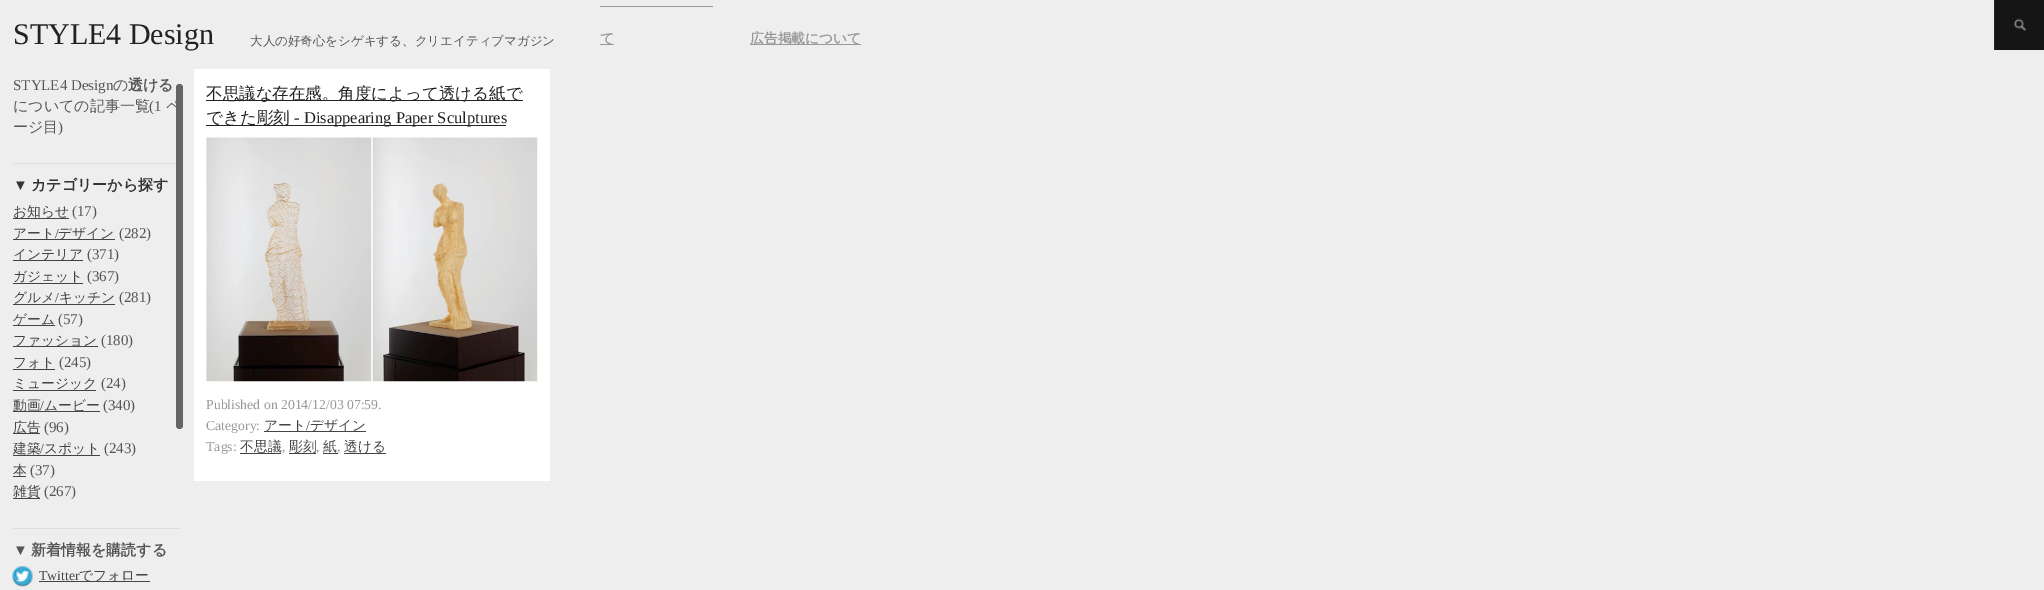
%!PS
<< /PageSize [2044 590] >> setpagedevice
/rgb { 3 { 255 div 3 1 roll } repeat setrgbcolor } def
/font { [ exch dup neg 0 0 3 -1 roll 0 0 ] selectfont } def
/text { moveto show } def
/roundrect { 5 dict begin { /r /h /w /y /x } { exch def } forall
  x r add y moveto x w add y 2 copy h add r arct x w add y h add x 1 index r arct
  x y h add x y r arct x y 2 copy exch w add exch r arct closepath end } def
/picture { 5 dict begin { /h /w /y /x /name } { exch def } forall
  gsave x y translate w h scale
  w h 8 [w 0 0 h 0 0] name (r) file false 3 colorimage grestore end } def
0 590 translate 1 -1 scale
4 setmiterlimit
238 238 238 rgb
0 0 2044 590 rectfill
153 153 153 rgb
600 6 113 1 rectfill
600 44 14 1 rectfill
750 44 111 1 rectfill
21 21 21 rgb
1995 0 49 50 rectfill
(img_01.rgb) 2013 18 14 14 picture
37 37 37 rgb
1994 0 1 50 rectfill
221 221 221 rgb
13 163 168 1 rectfill
68 68 68 rgb
13 218 56 1 rectfill
13 239 102 1 rectfill
13 260 70 1 rectfill
13 283 70 1 rectfill
13 304 102 1 rectfill
13 325 42 1 rectfill
13 346 85 1 rectfill
13 369 42 1 rectfill
13 390 83 1 rectfill
13 411 87 1 rectfill
13 433 27 1 rectfill
13 455 87 1 rectfill
13 476 13 1 rectfill
13 498 27 1 rectfill
221 221 221 rgb
13 528 168 1 rectfill
(img_02.rgb) 12 566 21 21 picture
68 68 68 rgb
39 581 111 1 rectfill
255 255 255 rgb
194 69 356 412 rectfill
34 34 34 rgb
206 100 317 1 rectfill
206 125 300 1 rectfill
(img_03.rgb) 206 137 332 245 picture
68 68 68 rgb
264 431 102 1 rectfill
240 453 41 1 rectfill
289 453 27 1 rectfill
323 453 15 1 rectfill
344 453 42 1 rectfill
/LiberationSerif-Regular 30 font
34 34 34 rgb
(STYLE4 Design) 13 44 text
/WenQuanYiZenHei-Medium 12.5 font
85 85 85 rgb
(大人の好奇心をシゲキする、クリエイティブマガジン) 250 45 text
/WenQuanYiZenHei-Bold 13.75 font
153 153 153 rgb
(て) 600 43 text
(広告掲載について) 750 43 text
/LiberationSerif-Regular 15 font
85 85 85 rgb
(STYLE4 Design) 13 90 text
/WenQuanYiZenHei-Medium 15 font
(の) 113 90 text
/WenQuanYiZenHei-Bold 15 font
(透ける) 128 90 text
/WenQuanYiZenHei-Medium 15 font
(についての記事一覧) 13 111 text
/LiberationSerif-Regular 15 font
(\(1) 149 111 text
/WenQuanYiZenHei-Medium 15 font
(ペ) 166 111 text
(ージ目) 13 132 text
/LiberationSerif-Regular 15 font
(\)) 58 132 text
/LiberationSerif-Bold 15 font
51 51 51 rgb
(▼) 13 190 text
/WenQuanYiZenHei-Bold 15 font
(カテゴリーから探す) 31 190 text
/WenQuanYiZenHei-Medium 13.75 font
68 68 68 rgb
(お知らせ) 13 216 text
/LiberationSerif-Regular 15 font
85 85 85 rgb
(\(17\)) 72 216 text
/WenQuanYiZenHei-Medium 13.75 font
68 68 68 rgb
(アート) 13 238 text
/LiberationSerif-Regular 13.75 font
(/) 55 238 text
/WenQuanYiZenHei-Medium 13.75 font
(デザイン) 58 238 text
/LiberationSerif-Regular 15 font
85 85 85 rgb
(\(282\)) 119 238 text
/WenQuanYiZenHei-Medium 13.75 font
68 68 68 rgb
(インテリア) 13 259 text
/LiberationSerif-Regular 15 font
85 85 85 rgb
(\(371\)) 87 259 text
/WenQuanYiZenHei-Medium 13.75 font
68 68 68 rgb
(ガジェット) 13 281 text
/LiberationSerif-Regular 15 font
85 85 85 rgb
(\(367\)) 87 281 text
/WenQuanYiZenHei-Medium 13.75 font
68 68 68 rgb
(グルメ) 13 302 text
/LiberationSerif-Regular 13.75 font
(/) 55 302 text
/WenQuanYiZenHei-Medium 13.75 font
(キッチン) 59 302 text
/LiberationSerif-Regular 15 font
85 85 85 rgb
(\(281\)) 119 302 text
/WenQuanYiZenHei-Medium 13.75 font
68 68 68 rgb
(ゲーム) 13 324 text
/LiberationSerif-Regular 15 font
85 85 85 rgb
(\(57\)) 58 324 text
/WenQuanYiZenHei-Medium 13.75 font
68 68 68 rgb
(ファッション) 13 345 text
/LiberationSerif-Regular 15 font
85 85 85 rgb
(\(180\)) 101 345 text
/WenQuanYiZenHei-Medium 13.75 font
68 68 68 rgb
(フォト) 13 367 text
/LiberationSerif-Regular 15 font
85 85 85 rgb
(\(245\)) 59 367 text
/WenQuanYiZenHei-Medium 13.75 font
68 68 68 rgb
(ミュージック) 13 388 text
/LiberationSerif-Regular 15 font
85 85 85 rgb
(\(24\)) 101 388 text
/WenQuanYiZenHei-Medium 13.75 font
68 68 68 rgb
(動画) 13 410 text
/LiberationSerif-Regular 13.75 font
(/) 40 410 text
/WenQuanYiZenHei-Medium 13.75 font
(ムービー) 44 410 text
/LiberationSerif-Regular 15 font
85 85 85 rgb
(\(340\)) 103 410 text
/WenQuanYiZenHei-Medium 13.75 font
68 68 68 rgb
(広告) 13 432 text
/LiberationSerif-Regular 15 font
85 85 85 rgb
(\(96\)) 44 432 text
/WenQuanYiZenHei-Medium 13.75 font
68 68 68 rgb
(建築) 13 453 text
/LiberationSerif-Regular 13.75 font
(/) 40 453 text
/WenQuanYiZenHei-Medium 13.75 font
(スポット) 44 453 text
/LiberationSerif-Regular 15 font
85 85 85 rgb
(\(243\)) 104 453 text
/WenQuanYiZenHei-Medium 13.75 font
68 68 68 rgb
(本) 13 475 text
/LiberationSerif-Regular 15 font
85 85 85 rgb
(\(37\)) 30 475 text
/WenQuanYiZenHei-Medium 13.75 font
68 68 68 rgb
(雑貨) 13 496 text
/LiberationSerif-Regular 15 font
85 85 85 rgb
(\(267\)) 44 496 text
/LiberationSerif-Bold 15 font
(▼) 13 555 text
/WenQuanYiZenHei-Bold 15 font
(新着情報を購読する) 31 555 text
/LiberationSerif-Regular 13.75 font
68 68 68 rgb
(Twitter) 39 580 text
/WenQuanYiZenHei-Medium 13.75 font
(でフォロー) 79 580 text
102 102 102 rgb
176 84 7 345 3.5 roundrect fill
/WenQuanYiZenHei-Medium 16.5 font
34 34 34 rgb
(不思議な存在感。角度によって透ける紙で) 206 99 text
(できた彫刻) 206 123 text
/LiberationSerif-Regular 16.5 font
(- Disappearing Paper Sculptures) 294 123 text
/LiberationSerif-Regular 13.75 font
153 153 153 rgb
(Published on 2014/12/03 07:59.) 206 409 text
(Category:) 206 430 text
/WenQuanYiZenHei-Medium 13.75 font
68 68 68 rgb
(アート) 264 430 text
/LiberationSerif-Regular 13.75 font
(/) 306 430 text
/WenQuanYiZenHei-Medium 13.75 font
(デザイン) 310 430 text
/LiberationSerif-Regular 13.75 font
153 153 153 rgb
(Tags:) 206 451 text
/WenQuanYiZenHei-Medium 13.75 font
68 68 68 rgb
(不思議) 240 451 text
/LiberationSerif-Regular 13.75 font
153 153 153 rgb
(,) 282 451 text
/WenQuanYiZenHei-Medium 13.75 font
68 68 68 rgb
(彫刻) 289 451 text
/LiberationSerif-Regular 13.75 font
153 153 153 rgb
(,) 316 451 text
/WenQuanYiZenHei-Medium 13.75 font
68 68 68 rgb
(紙) 323 451 text
/LiberationSerif-Regular 13.75 font
153 153 153 rgb
(,) 337 451 text
/WenQuanYiZenHei-Medium 13.75 font
68 68 68 rgb
(透ける) 344 451 text
showpage
